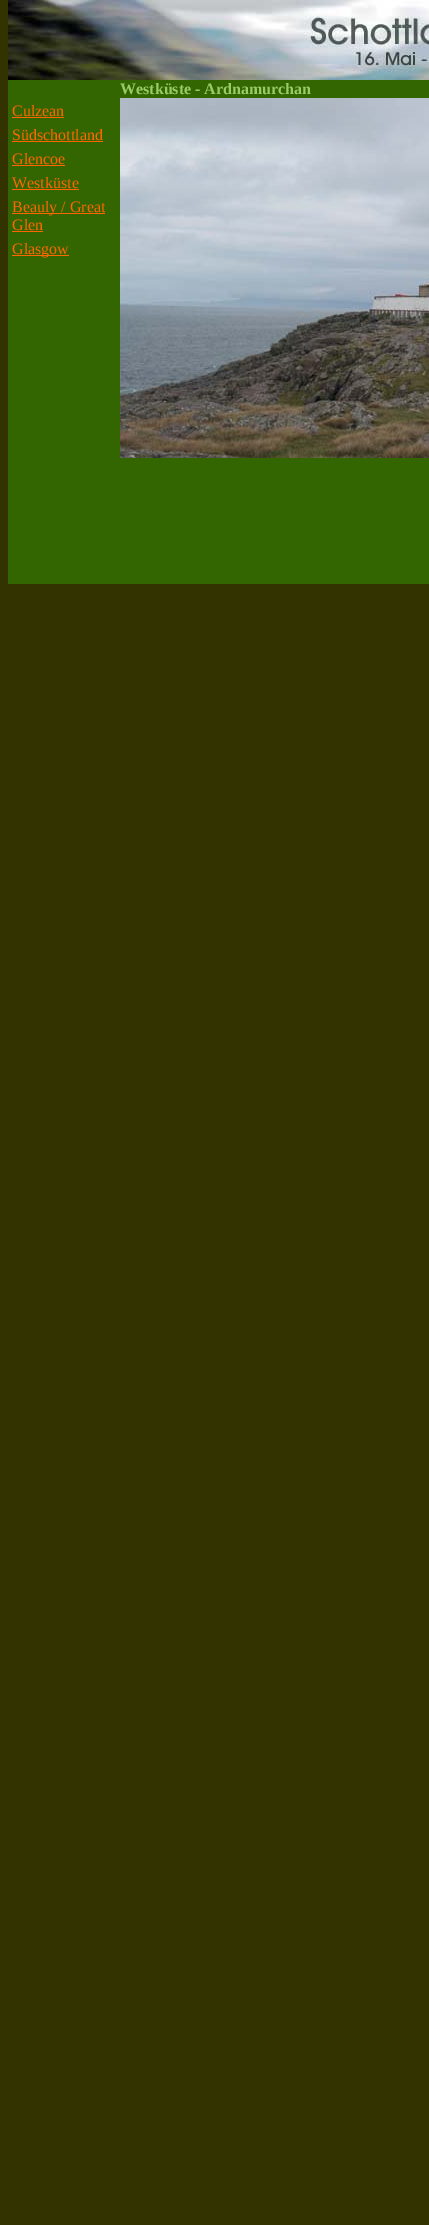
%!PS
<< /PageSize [429 2225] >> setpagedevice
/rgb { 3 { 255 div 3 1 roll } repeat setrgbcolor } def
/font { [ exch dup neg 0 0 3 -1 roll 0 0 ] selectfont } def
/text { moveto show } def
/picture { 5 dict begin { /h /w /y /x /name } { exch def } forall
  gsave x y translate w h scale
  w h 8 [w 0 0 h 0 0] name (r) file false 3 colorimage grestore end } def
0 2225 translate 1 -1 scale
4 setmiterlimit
51 51 0 rgb
0 0 429 2225 rectfill
(img_01.rgb) 8 0 421 80 picture
51 102 0 rgb
8 80 421 504 rectfill
255 102 0 rgb
12 117 52 1 rectfill
12 141 91 1 rectfill
12 165 53 1 rectfill
12 189 67 1 rectfill
12 213 93 1 rectfill
12 231 31 1 rectfill
12 255 57 1 rectfill
(img_02.rgb) 120 98 309 360 picture
/LiberationSerif-Bold 16 font
153 204 102 rgb
(Westküste - Ardnamurchan) 120 94 text
/LiberationSerif-Regular 16 font
255 102 0 rgb
(Culzean) 12 116 text
(Südschottland) 12 140 text
(Glencoe) 12 164 text
(Westküste) 12 188 text
(Beauly / Great) 12 212 text
(Glen) 12 230 text
(Glasgow) 12 254 text
showpage
